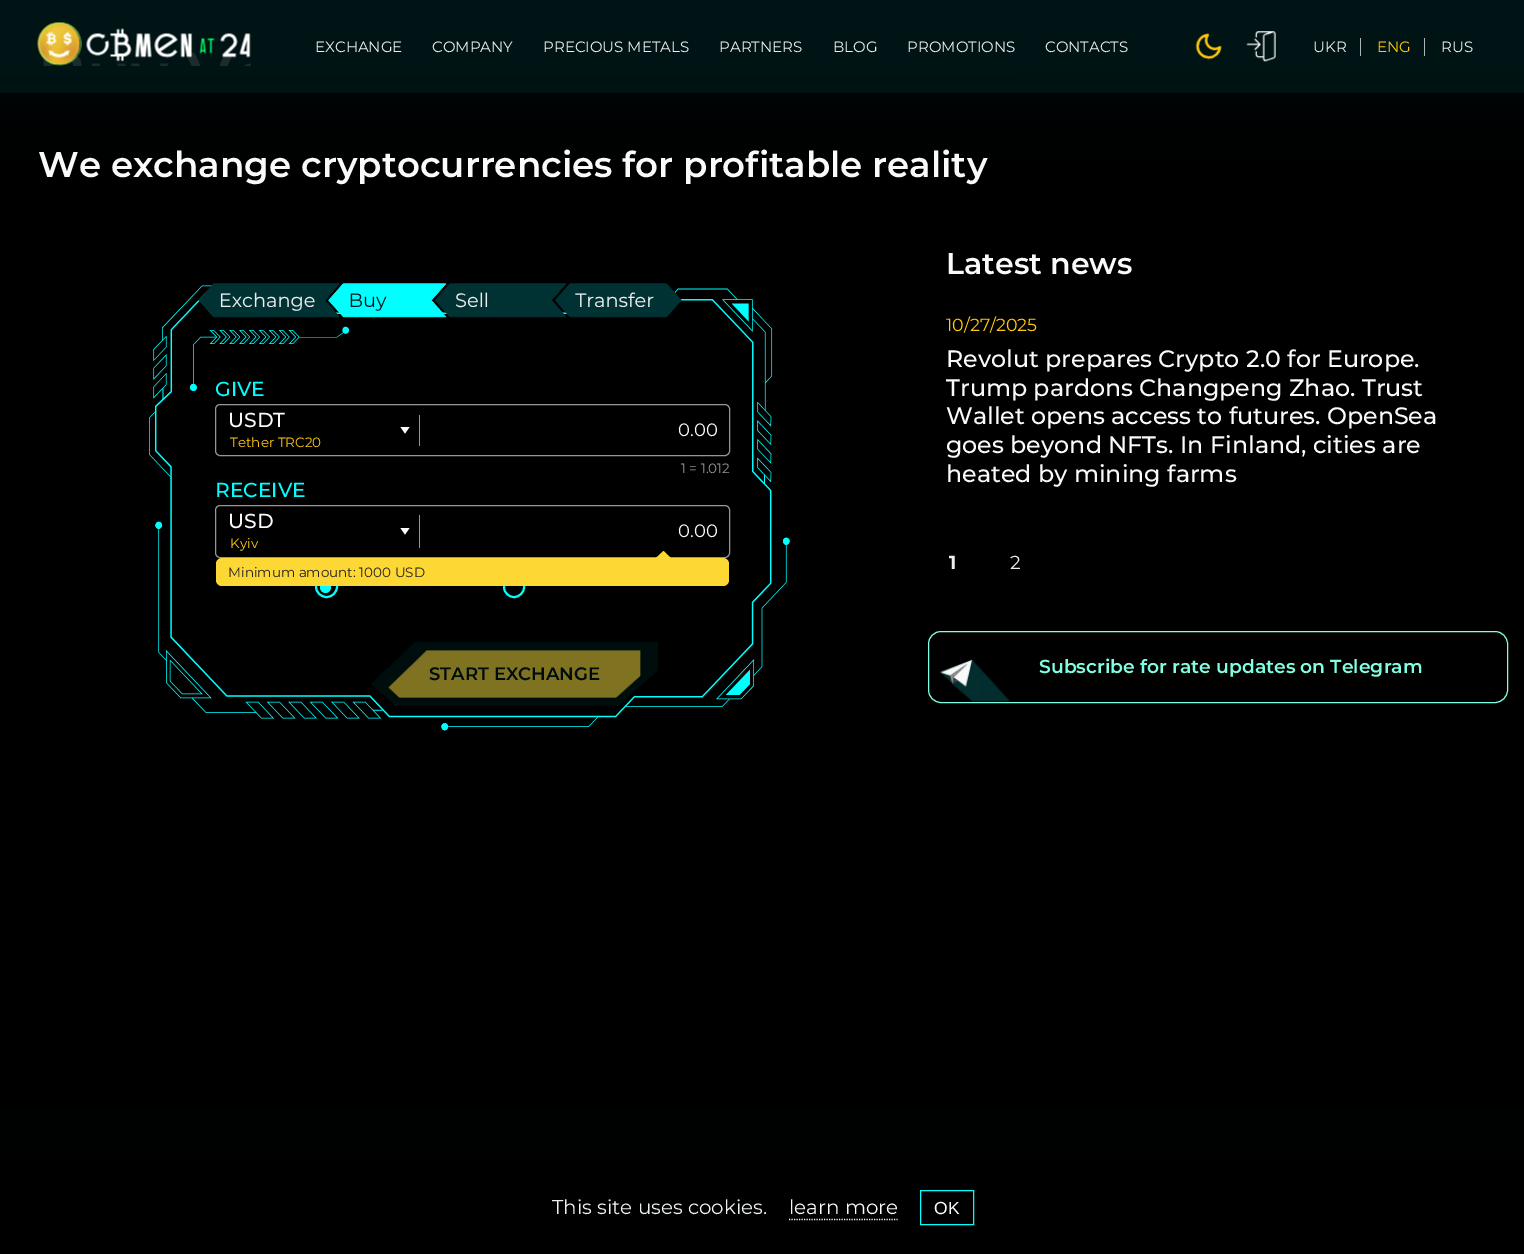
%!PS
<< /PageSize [1524 1254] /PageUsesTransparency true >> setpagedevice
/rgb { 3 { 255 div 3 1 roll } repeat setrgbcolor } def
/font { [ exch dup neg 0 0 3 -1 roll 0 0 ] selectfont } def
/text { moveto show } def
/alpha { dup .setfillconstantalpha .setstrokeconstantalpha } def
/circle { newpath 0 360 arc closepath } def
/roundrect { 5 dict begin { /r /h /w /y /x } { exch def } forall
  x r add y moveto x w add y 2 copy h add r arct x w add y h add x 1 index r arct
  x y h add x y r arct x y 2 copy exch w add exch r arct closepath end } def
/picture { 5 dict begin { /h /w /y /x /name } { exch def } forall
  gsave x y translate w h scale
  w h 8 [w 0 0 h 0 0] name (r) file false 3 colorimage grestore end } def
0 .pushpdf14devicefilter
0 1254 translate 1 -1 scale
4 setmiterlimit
255 255 255 rgb
0 0 1524 1254 rectfill
gsave 0 0 moveto 1524 0 rlineto 0 1084 rlineto -1524 0 rlineto closepath clip newpath
<< /ShadingType 2 /ColorSpace /DeviceRGB /Coords [762 -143 763 1084] /Extend [true true] /Function << /FunctionType 3 /Domain [0 1] /Functions [<< /FunctionType 2 /Domain [0 1] /C0 [0 0.082 0.086] /C1 [0 0 0] /N 1 >> << /FunctionType 2 /Domain [0 1] /C0 [0 0 0] /C1 [0 0 0] /N 1 >>] /Bounds [0.25] /Encode [0 1 0 1] >> >> shfill grestore
0.9 alpha
0 21 22 rgb
0 0 1524 93 rectfill
1 alpha
(img_01.rgb) 37 22 214 44 picture
(img_02.rgb) 1195 33 27 27 picture
(img_03.rgb) 1246 31 30 31 picture
175 181 181 rgb
1360 38 1 18 rectfill
1424 38 1 18 rectfill
(img_04.rgb) 149 283 641 448 picture
150 150 150 rgb
215.5 404.5 514 51 4.5 roundrect stroke
255 255 255 rgb
400.5 427 moveto 9 0 rlineto -4.5 6.5 rlineto closepath fill
150 150 150 rgb
419 415 1 31 rectfill
215.5 505.5 514 52 4.5 roundrect stroke
255 255 255 rgb
400.5 528 moveto 9 0 rlineto -4.5 6.5 rlineto closepath fill
150 150 150 rgb
419 515 1 33 rectfill
0 255 255 rgb
2 setlinewidth
326.5 586.5 10.5 circle stroke
320 581 11 12 5.5 roundrect fill
504 576 20 21 10 roundrect stroke
253 216 53 rgb
216 558 513 28 6 roundrect fill
674.5 561.5 moveto -22.5 0 rlineto 11.5 -10.5 rlineto closepath fill
0 13 13 rgb
658 670 moveto -40 36 rlineto -222 0 rlineto -25 -22 rlineto 44 -42 rlineto 243 0 rlineto closepath fill
(img_05.rgb) 388 650 253 48 picture
(img_06.rgb) 940 659 70 43 picture
127 255 226 rgb
1 setlinewidth
928.5 631.5 579 71 12.5 roundrect stroke
gsave 0 1084 moveto 1524 0 rlineto 0 76 rlineto -1524 0 rlineto closepath clip newpath
<< /ShadingType 2 /ColorSpace /DeviceRGB /Coords [763 1084 763 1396] /Extend [true true] /Function << /FunctionType 3 /Domain [0 1] /Functions [<< /FunctionType 2 /Domain [0 1] /C0 [0 0 0] /C1 [0 0.016 0.016] /N 1 >> << /FunctionType 2 /Domain [0 1] /C0 [0 0.016 0.016] /C1 [0 0.047 0.051] /N 1 >> << /FunctionType 2 /Domain [0 1] /C0 [0 0.047 0.051] /C1 [0 0.082 0.086] /N 1 >> << /FunctionType 2 /Domain [0 1] /C0 [0 0.082 0.086] /C1 [0 0.082 0.086] /N 1 >>] /Bounds [0.3 0.5 0.8] /Encode [0 1 0 1 0 1 0 1] >> >> shfill grestore
0 0 0 rgb
0 1160 1524 94 rectfill
255 255 255 rgb
1.2 setlinewidth
[1.25 1.25] 0 setdash
789 1219.5 moveto 108.5 0 rlineto stroke
0 255 255 rgb
1 setlinewidth
[] 0 setdash
920.5 1190.5 53 34 rectstroke
/Montserrat-Regular 15 font
236 240 241 rgb
(EXCHANGE) 315 52 text
(COMPANY) 432 52 text
(PRECIOUS METALS) 543 52 text
(PARTNERS) 719 52 text
(BLOG) 833 52 text
(PROMOTIONS) 907 52 text
(CONTACTS) 1045 52 text
(UKR) 1313 52 text
255 202 14 rgb
(ENG) 1377 52 text
236 240 241 rgb
(RUS) 1441 52 text
/Montserrat-SemiBold 35.6 font
250 250 250 rgb
(We exchange cryptocurrencies for profitable reality) 38 177 text
/Montserrat-Medium 20.25 font
0 255 255 rgb
(GIVE) 215 396 text
250 250 250 rgb
(USDT) 228 427 text
/Montserrat-Regular 13.5 font
255 202 14 rgb
(Tether TRC20) 230 447 text
/Montserrat-Regular 18 font
250 250 250 rgb
(0.00) 678 436 text
/Montserrat-Regular 13.5 font
150 150 150 rgb
(1 = 1.012) 681 473 text
/Montserrat-Medium 20.25 font
0 255 255 rgb
(RECEIVE) 215 497 text
250 250 250 rgb
(USD) 228 528 text
/Montserrat-Regular 13.5 font
255 202 14 rgb
(Kyiv) 230 548 text
/Montserrat-Regular 18 font
250 250 250 rgb
(0.00) 678 537 text
/Montserrat-Regular 13.5 font
33 33 33 rgb
(Minimum amount: 1000 USD) 228 577 text
/Montserrat-SemiBold 18 font
0 11 11 rgb
(START EXCHANGE) 429 680 text
/Montserrat-SemiBold 30 font
250 250 250 rgb
(Latest news) 946 274 text
/Montserrat-Regular 17.5 font
255 202 14 rgb
(10/27/2025) 946 331 text
/Montserrat-Medium 23.75 font
250 250 250 rgb
(Revolut prepares Crypto 2.0 for Europe.) 946 367 text
(Trump pardons Changpeng Zhao. Trust) 946 396 text
(Wallet opens access to futures. OpenSea) 946 424 text
(goes beyond NFTs. In Finland, cities are) 946 453 text
(heated by mining farms) 946 482 text
/Montserrat-Bold 18.75 font
236 240 241 rgb
(1) 949 569 text
/Montserrat-Regular 18.75 font
(2) 1010 569 text
/Montserrat-SemiBold 18.75 font
127 255 226 rgb
(Subscribe for rate updates on Telegram) 1039 673 text
/Montserrat-Regular 19.9 font
236 240 241 rgb
(This site uses cookies.) 552 1214 text
250 250 250 rgb
(learn more) 789 1214 text
/LiberationSans-Regular 17.5 font
(OK) 934 1214 text
.poppdf14devicefilter showpage
